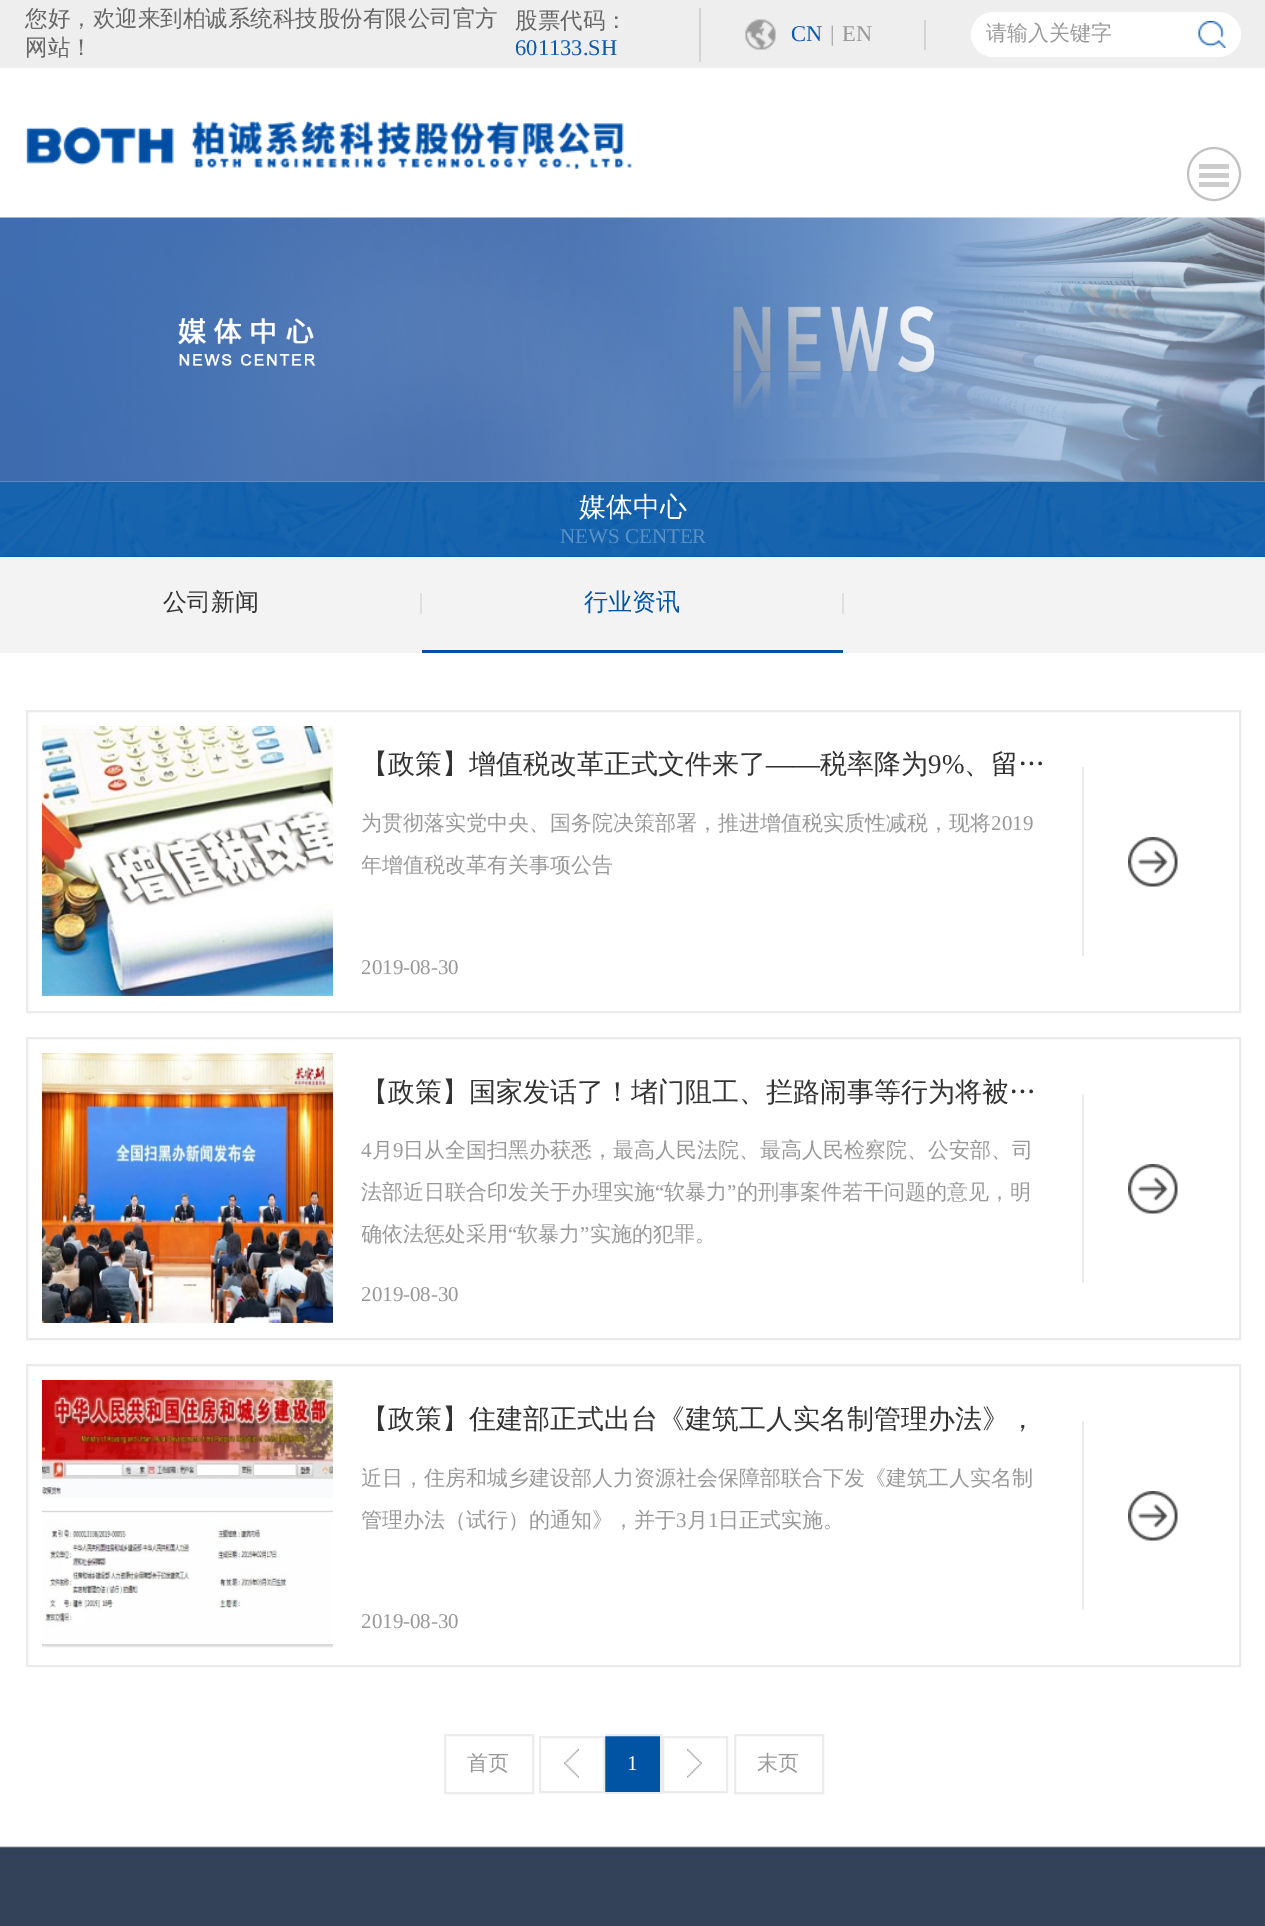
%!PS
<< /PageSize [1265 1926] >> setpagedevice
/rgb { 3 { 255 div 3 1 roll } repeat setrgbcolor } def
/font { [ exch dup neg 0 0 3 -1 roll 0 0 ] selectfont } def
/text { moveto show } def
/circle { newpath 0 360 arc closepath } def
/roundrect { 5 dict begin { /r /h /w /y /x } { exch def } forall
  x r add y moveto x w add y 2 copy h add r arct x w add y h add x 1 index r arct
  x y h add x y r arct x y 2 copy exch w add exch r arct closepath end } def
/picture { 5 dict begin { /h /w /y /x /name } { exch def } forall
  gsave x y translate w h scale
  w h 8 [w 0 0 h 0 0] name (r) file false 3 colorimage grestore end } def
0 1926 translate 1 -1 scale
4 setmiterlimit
255 255 255 rgb
0 0 1265 1926 rectfill
238 238 238 rgb
0 0 1265 68 rectfill
212 212 212 rgb
699 8 2 54 rectfill
924 20 2 30 rectfill
(img_01.rgb) 745 19 31 31 picture
255 255 255 rgb
971 12 270 45 22.5 roundrect fill
(img_02.rgb) 1198 21 28 27 picture
(img_03.rgb) 26 120 606 50 picture
193 193 193 rgb
2 setlinewidth
1214 174 26 circle stroke
204 204 204 rgb
1199 173 30 5 rectfill
1199 164 30 5 rectfill
1199 182 30 5 rectfill
(img_04.rgb) 0 217 1265 265 picture
243 243 243 rgb
0 557 1265 96 rectfill
1 84 164 rgb
0 556 1265 1 rectfill
(img_05.rgb) 0 481 1265 76 picture
223 223 223 rgb
420 593 2 21 1 roundrect fill
1 84 164 rgb
422 650 421 3 rectfill
223 223 223 rgb
842 593 2 21 1 roundrect fill
235 235 235 rgb
27 711 1213 301 rectstroke
(img_06.rgb) 42 726 291 270 picture
1082 767 2 189 rectfill
(img_07.rgb) 1128 837 50 50 picture
27 1038 1213 301 rectstroke
(img_08.rgb) 42 1053 291 270 picture
1082 1094 2 189 rectfill
(img_07.rgb) 1128 1164 50 50 picture
27 1365 1213 301 rectstroke
(img_09.rgb) 42 1380 291 268 picture
1082 1421 2 189 rectfill
(img_07.rgb) 1128 1491 50 50 picture
236 236 236 rgb
445 1735 88 58 rectstroke
(img_10.rgb) 564 1749 15 29 picture
540 1737 64 55 rectstroke
1 84 164 rgb
605 1736 55 56 rectfill
gsave
605 1734 57 60 rectclip
236 236 236 rgb
604 1735 57 58 rectstroke
grestore
(img_11.rgb) 687 1749 15 29 picture
236 236 236 rgb
663 1737 64 55 rectstroke
735 1735 88 58 rectstroke
(img_12.rgb) 0 1846 1265 80 picture
/WenQuanYiZenHei-Medium 22.5 font
102 102 102 rgb
(您好，欢迎来到柏诚系统科技股份有限公司官方) 25 26 text
(网站！) 25 55 text
(股票代码：) 515 28 text
/LiberationSerif-Regular 22.5 font
11 90 175 rgb
(601133.SH) 515 55 text
(CN) 791 41 text
153 153 153 rgb
(|) 830 41 text
(EN) 842 41 text
/WenQuanYiZenHei-Medium 21 font
(请输入关键字) 986 40 text
/WenQuanYiZenHei-Medium 27 font
255 255 255 rgb
(媒体中心) 579 516 text
/LiberationSerif-Regular 21 font
91 145 198 rgb
(NEWS CENTER) 560 543 text
/WenQuanYiZenHei-Medium 24 font
51 51 51 rgb
(公司新闻) 163 610 text
1 84 164 rgb
(行业资讯) 584 610 text
/WenQuanYiZenHei-Medium 27 font
51 51 51 rgb
(【政策】增值税改革正式文件来了) 361 773 text
/LiberationSerif-Regular 27 font
(——) 766 773 text
/WenQuanYiZenHei-Medium 27 font
(税率降为) 820 773 text
/LiberationSerif-Regular 27 font
(9%) 928 773 text
/WenQuanYiZenHei-Medium 27 font
(、留…) 964 773 text
/WenQuanYiZenHei-Medium 21 font
153 153 153 rgb
(为贯彻落实党中央、国务院决策部署，推进增值税实质性减税，现将) 361 830 text
/LiberationSerif-Regular 21 font
(2019) 991 830 text
gsave
362 803 685 126 rectclip
/WenQuanYiZenHei-Medium 21 font
(年增值税改革有关事项公告) 361 872 text
grestore
(2019-08-30) 361 974 text
/WenQuanYiZenHei-Medium 27 font
51 51 51 rgb
(【政策】国家发话了！堵门阻工、拦路闹事等行为将被…) 361 1101 text
/LiberationSerif-Regular 21 font
153 153 153 rgb
(4) 361 1157 text
/WenQuanYiZenHei-Medium 21 font
(月) 372 1157 text
/LiberationSerif-Regular 21 font
(9) 393 1157 text
/WenQuanYiZenHei-Medium 21 font
(日从全国扫黑办获悉，最高人民法院、最高人民检察院、公安部、司) 403 1157 text
(法部近日联合印发关于办理实施) 361 1199 text
/LiberationSerif-Regular 21 font
(“) 655 1199 text
/WenQuanYiZenHei-Medium 21 font
(软暴力) 664 1199 text
/LiberationSerif-Regular 21 font
(”) 727 1199 text
/WenQuanYiZenHei-Medium 21 font
(的刑事案件若干问题的意见，明) 737 1199 text
gsave
362 1131 685 126 rectclip
(确依法惩处采用) 361 1241 text
grestore
/LiberationSerif-Regular 21 font
(“) 508 1241 text
/WenQuanYiZenHei-Medium 21 font
(软暴力) 517 1241 text
/LiberationSerif-Regular 21 font
(”) 580 1241 text
/WenQuanYiZenHei-Medium 21 font
(实施的犯罪。) 590 1241 text
/LiberationSerif-Regular 21 font
(2019-08-30) 361 1301 text
/WenQuanYiZenHei-Medium 27 font
51 51 51 rgb
(【政策】住建部正式出台《建筑工人实名制管理办法》，) 361 1428 text
gsave
362 1458 685 126 rectclip
/WenQuanYiZenHei-Medium 21 font
153 153 153 rgb
(近日，住房和城乡建设部人力资源社会保障部联合下发《建筑工人实名制) 361 1485 text
grestore
/WenQuanYiZenHei-Medium 21 font
153 153 153 rgb
(管理办法（试行）的通知》，并于) 361 1527 text
/LiberationSerif-Regular 21 font
(3) 676 1527 text
/WenQuanYiZenHei-Medium 21 font
(月) 687 1527 text
/LiberationSerif-Regular 21 font
(1) 708 1527 text
/WenQuanYiZenHei-Medium 21 font
(日正式实施。) 718 1527 text
/LiberationSerif-Regular 21 font
(2019-08-30) 361 1628 text
/WenQuanYiZenHei-Medium 21 font
(首页) 467 1770 text
/LiberationSerif-Regular 21 font
255 255 255 rgb
(1) 627 1770 text
/WenQuanYiZenHei-Medium 21 font
153 153 153 rgb
(末页) 757 1770 text
showpage
